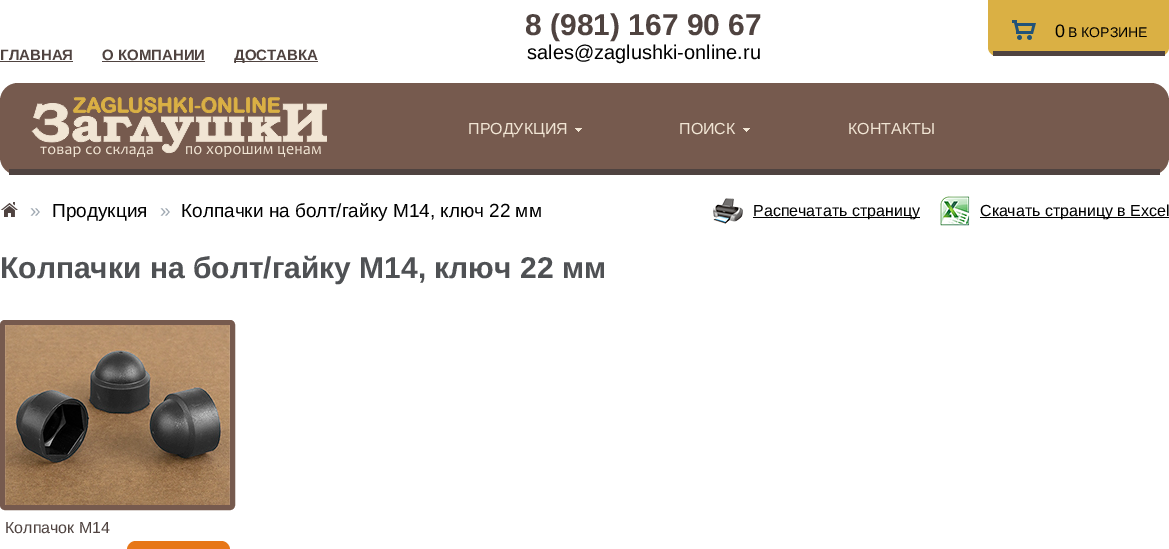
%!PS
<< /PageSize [1169 549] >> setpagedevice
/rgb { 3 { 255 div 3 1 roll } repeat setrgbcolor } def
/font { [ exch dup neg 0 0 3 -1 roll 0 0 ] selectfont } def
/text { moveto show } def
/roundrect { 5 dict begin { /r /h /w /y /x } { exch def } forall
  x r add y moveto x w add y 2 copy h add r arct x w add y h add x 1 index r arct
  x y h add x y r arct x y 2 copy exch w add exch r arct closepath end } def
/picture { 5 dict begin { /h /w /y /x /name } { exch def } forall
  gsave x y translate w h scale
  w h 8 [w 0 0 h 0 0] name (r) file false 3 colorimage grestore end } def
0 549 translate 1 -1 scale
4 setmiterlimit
255 255 255 rgb
0 0 1169 549 rectfill
218 176 68 rgb
988 -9 181 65 9 roundrect fill
79 67 64 rgb
993 51 172 5 rectfill
(img_01.rgb) 1012 20 24 20 picture
0 61 73 1 rectfill
102 61 103 1 rectfill
234 61 84 1 rectfill
118 90 78 rgb
0 83 1169 92 18 roundrect fill
79 67 64 rgb
9 169 1151 6 rectfill
(img_02.rgb) 31 97 296 60 picture
(img_03.rgb) 575 128 7 4 picture
(img_03.rgb) 743 128 7 4 picture
(img_04.rgb) 1 202 17 15 picture
(img_05.rgb) 713 198 30 26 picture
0 0 0 rgb
753 217 167 1 rectfill
(img_06.rgb) 940 196 30 30 picture
980 217 189 1 rectfill
118 90 78 rgb
5 setlinewidth
2.5 322.5 230 185 2.5 roundrect stroke
(img_07.rgb) 5 325 225 180 picture
231 119 24 rgb
127 541 103 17 9 roundrect fill
/LiberationSans-Bold 30 font
79 67 64 rgb
(8 \(981\) 167 90 67) 525 35 text
/LiberationSans-Regular 20 font
0 0 0 rgb
(sales@zaglushki-online.ru) 527 59 text
/LiberationSans-Regular 18 font
(0) 1055 37 text
/LiberationSans-Regular 14 font
(В КОРЗИНЕ) 1068 37 text
/LiberationSans-Bold 15 font
79 67 64 rgb
(ГЛАВНАЯ) 0 60 text
(О КОМПАНИИ) 102 60 text
(ДОСТАВКА) 234 60 text
/LiberationSans-Regular 16 font
241 229 212 rgb
(ПРОДУКЦИЯ) 468 134 text
(ПОИСК) 679 134 text
(КОНТАКТЫ) 848 134 text
/LiberationSans-Regular 19 font
161 170 179 rgb
(») 30 217 text
0 0 0 rgb
(Продукция) 52 217 text
161 170 179 rgb
(») 160 217 text
0 0 0 rgb
(Колпачки на болт/гайку М14, ключ 22 мм) 181 217 text
/LiberationSans-Regular 16 font
(Распечатать страницу) 753 216 text
(Скачать страницу в Excel) 980 216 text
/LiberationSans-Bold 30 font
79 81 84 rgb
(Колпачки на болт/гайку М14, ключ 22 мм) 0 278 text
/LiberationSans-Regular 16 font
79 67 64 rgb
(Колпачок М14) 5 533 text
showpage
